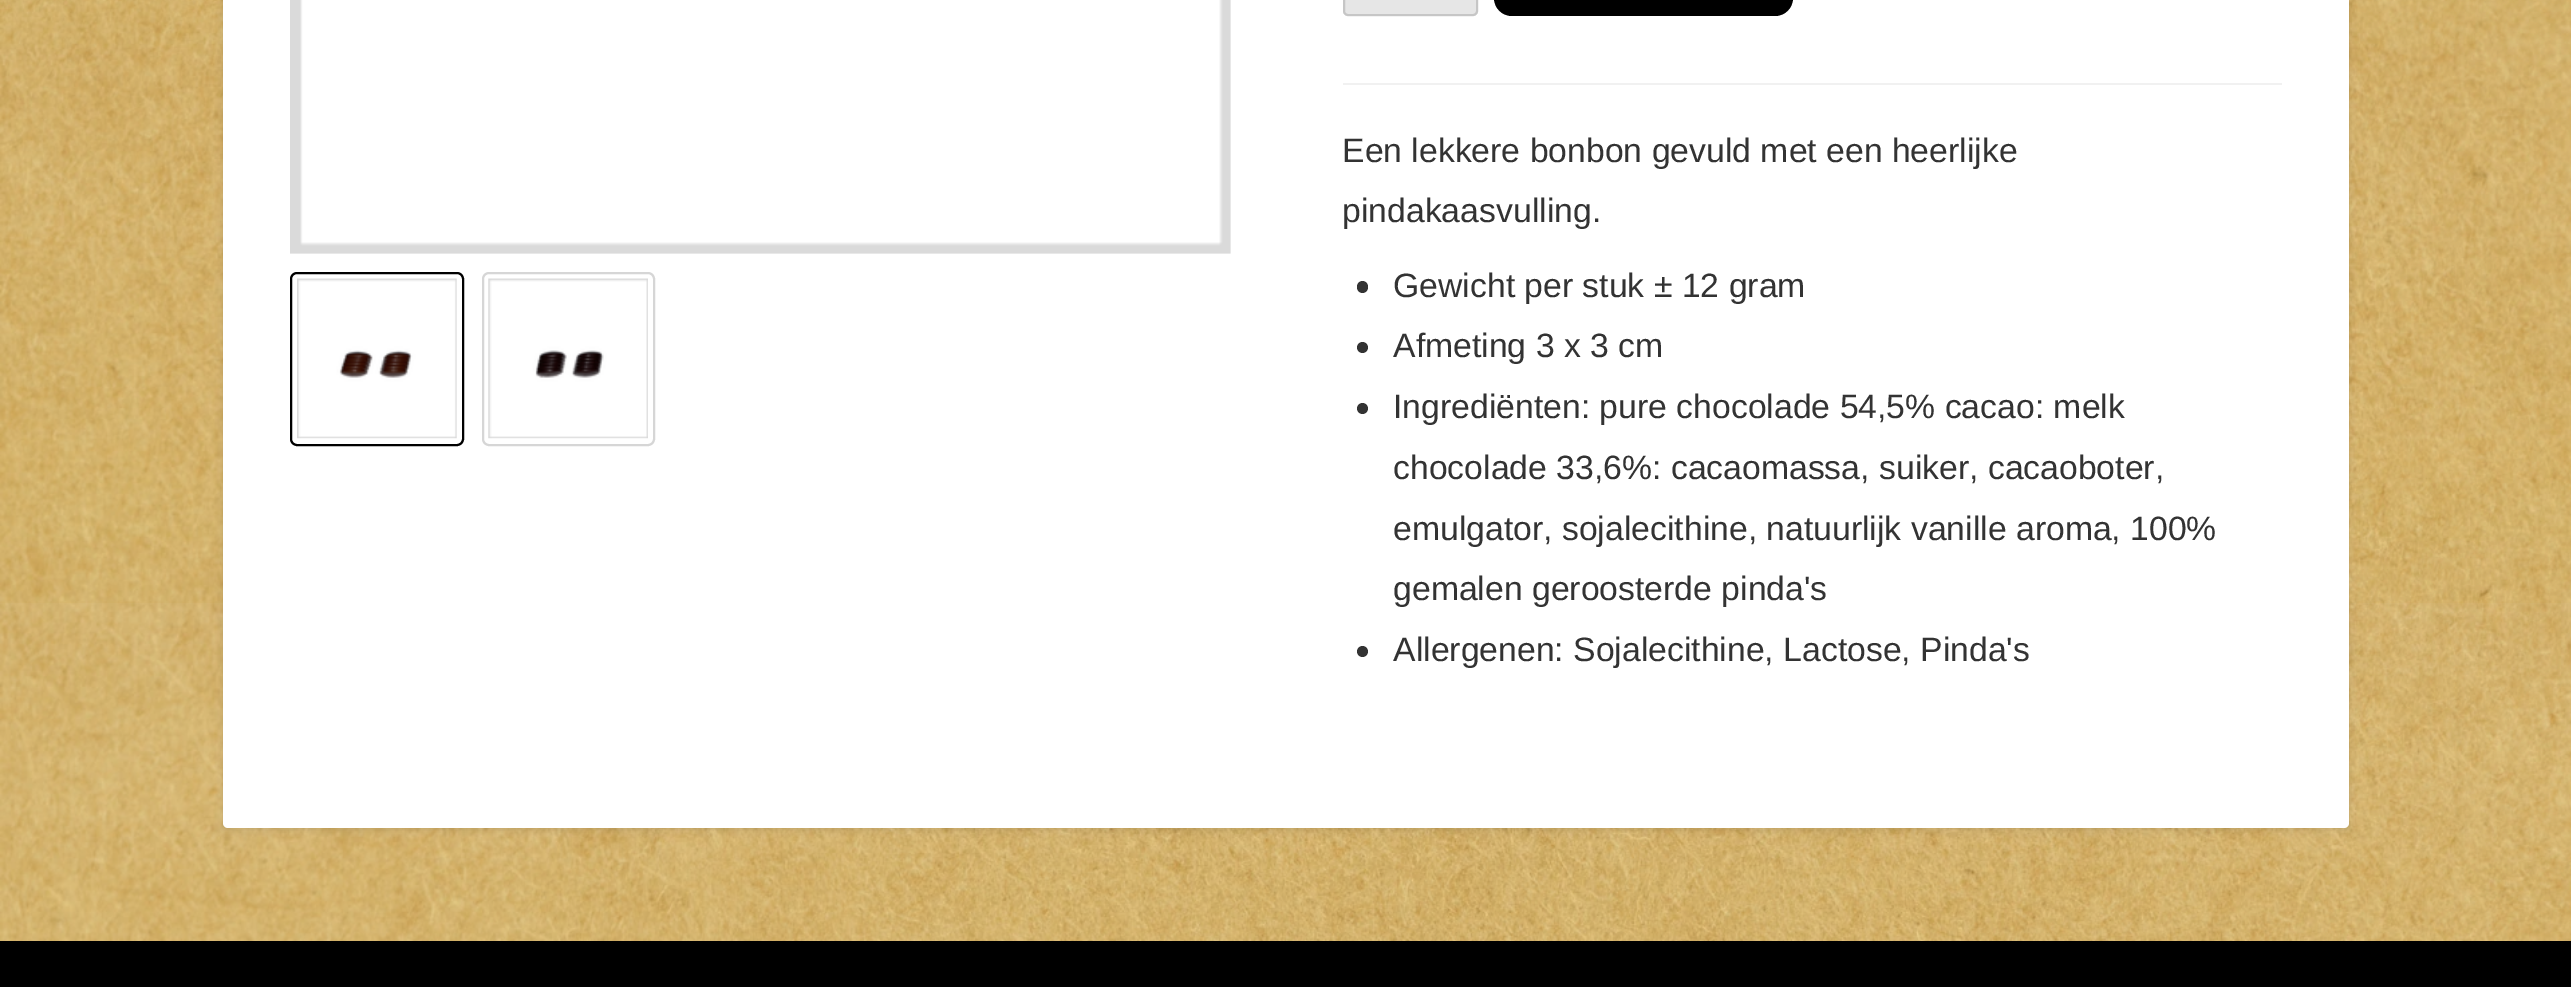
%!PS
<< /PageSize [2571 987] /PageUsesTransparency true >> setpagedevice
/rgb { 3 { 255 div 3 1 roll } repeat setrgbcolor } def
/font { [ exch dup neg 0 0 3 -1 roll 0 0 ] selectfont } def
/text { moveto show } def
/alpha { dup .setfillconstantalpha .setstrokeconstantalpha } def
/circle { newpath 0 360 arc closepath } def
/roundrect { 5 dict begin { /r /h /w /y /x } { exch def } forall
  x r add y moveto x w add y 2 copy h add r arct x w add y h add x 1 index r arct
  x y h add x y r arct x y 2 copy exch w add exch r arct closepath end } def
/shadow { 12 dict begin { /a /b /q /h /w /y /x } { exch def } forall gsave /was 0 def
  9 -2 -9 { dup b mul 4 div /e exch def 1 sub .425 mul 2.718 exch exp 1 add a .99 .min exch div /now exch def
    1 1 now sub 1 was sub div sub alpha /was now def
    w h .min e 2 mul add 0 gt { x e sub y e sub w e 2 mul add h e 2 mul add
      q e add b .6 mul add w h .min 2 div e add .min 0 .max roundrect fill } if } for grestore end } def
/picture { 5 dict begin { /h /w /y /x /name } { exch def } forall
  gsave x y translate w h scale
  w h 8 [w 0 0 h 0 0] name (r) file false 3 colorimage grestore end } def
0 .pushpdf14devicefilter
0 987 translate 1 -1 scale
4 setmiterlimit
255 255 255 rgb
0 0 2571 987 rectfill
gsave 0 0 moveto 2571 0 rlineto 0 603 rlineto -2571 0 rlineto closepath clip newpath
<< /ShadingType 2 /ColorSpace /DeviceRGB /Coords [1286 603 1286 -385] /Extend [true true] /Function << /FunctionType 2 /Domain [0 1] /C0 [0.855 0.722 0.267] /C1 [0.863 0.737 0.31] /N 1 >> >> shfill grestore
gsave 0 603 moveto 2571 0 rlineto 0 338 rlineto -2571 0 rlineto closepath clip newpath
<< /ShadingType 2 /ColorSpace /DeviceRGB /Coords [1286 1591 1286 603] /Extend [true true] /Function << /FunctionType 2 /Domain [0 1] /C0 [0.855 0.722 0.267] /C1 [0.863 0.737 0.31] /N 1 >> >> shfill grestore
(img_01.rgb) 0 0 2571 941 picture
0 0 0 rgb
223 -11 2126 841 0 3.5 0.1 shadow
255 255 255 rgb
223 -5 2126 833 5 roundrect fill
(img_02.rgb) 290 0 941 254 picture
0 0 0 rgb
2 setlinewidth
291 273 172 172 6 roundrect stroke
(img_03.rgb) 297 278 160 161 picture
214 214 214 rgb
483 273 171 172 6 roundrect stroke
(img_04.rgb) 488 278 160 161 picture
230 230 230 rgb
1343 -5 135 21 5 roundrect fill
0.5 alpha
166 166 166 rgb
1344 -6 133 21 4 roundrect stroke
1 alpha
0 0 0 rgb
1494 -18 299 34 18 roundrect fill
241 241 241 rgb
1343 83 939 2 rectfill
51 51 51 rgb
1357 281 11 12 5.5 roundrect fill
1362.5 347.5 5.5 circle fill
1362.5 408.5 5.5 circle fill
1362.5 651.5 5.5 circle fill
0 0 0 rgb
0 941 2571 46 rectfill
/LiberationSans-Regular 33.75 font
51 51 51 rgb
(Een lekkere bonbon gevuld met een heerlijke) 1342 162 text
(pindakaasvulling.) 1342 222 text
(Gewicht per stuk ± 12 gram) 1393 297 text
(Afmeting 3 x 3 cm) 1393 357 text
(Ingrediënten: pure chocolade 54,5% cacao: melk) 1393 418 text
(chocolade 33,6%: cacaomassa, suiker, cacaoboter,) 1393 479 text
(emulgator, sojalecithine, natuurlijk vanille aroma, 100%) 1393 540 text
(gemalen geroosterde pinda's) 1393 600 text
(Allergenen: Sojalecithine, Lactose, Pinda's) 1393 661 text
.poppdf14devicefilter showpage
